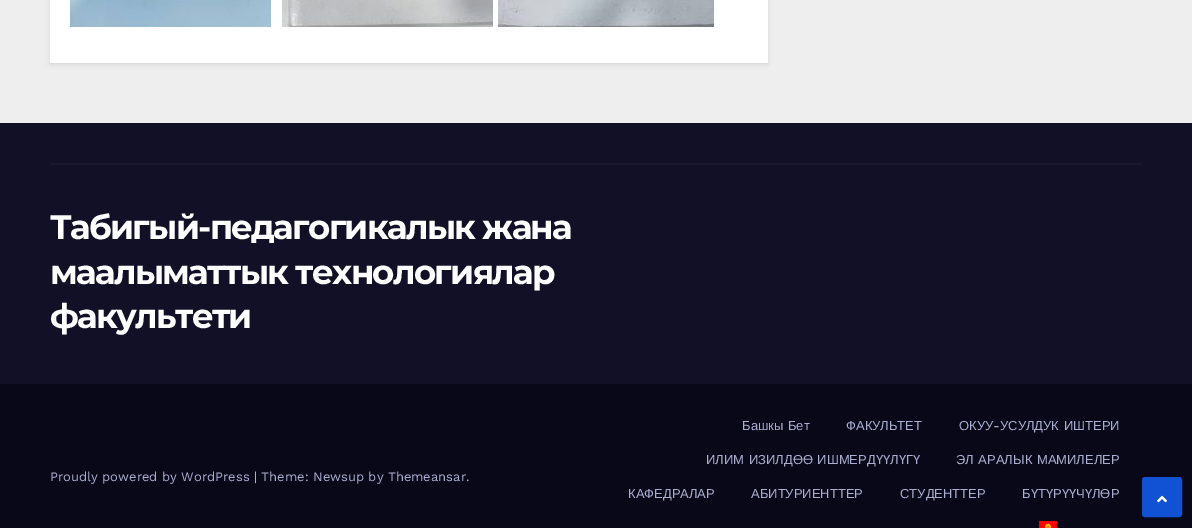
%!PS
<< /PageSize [1192 528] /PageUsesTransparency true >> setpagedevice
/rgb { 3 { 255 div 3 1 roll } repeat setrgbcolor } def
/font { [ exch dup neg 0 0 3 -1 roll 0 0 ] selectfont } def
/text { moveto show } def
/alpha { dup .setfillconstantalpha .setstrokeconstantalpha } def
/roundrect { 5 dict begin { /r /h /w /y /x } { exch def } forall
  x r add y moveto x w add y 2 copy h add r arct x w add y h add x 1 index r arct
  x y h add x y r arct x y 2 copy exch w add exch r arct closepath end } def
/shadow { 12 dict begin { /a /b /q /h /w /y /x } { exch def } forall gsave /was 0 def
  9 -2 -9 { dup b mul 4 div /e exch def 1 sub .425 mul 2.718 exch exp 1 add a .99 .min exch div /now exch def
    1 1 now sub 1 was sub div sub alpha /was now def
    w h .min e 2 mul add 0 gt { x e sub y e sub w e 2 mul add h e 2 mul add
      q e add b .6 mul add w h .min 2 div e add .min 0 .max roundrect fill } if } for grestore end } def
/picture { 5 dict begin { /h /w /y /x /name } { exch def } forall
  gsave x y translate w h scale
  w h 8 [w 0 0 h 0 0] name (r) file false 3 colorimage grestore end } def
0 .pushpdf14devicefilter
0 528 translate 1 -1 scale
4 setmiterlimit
238 238 238 rgb
0 0 1192 528 rectfill
0 0 0 rgb
50 -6 718 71 0 2 0.08 shadow
255 255 255 rgb
50 0 718 63 rectfill
(img_01.rgb) 70 0 201 27 picture
(img_02.rgb) 282 0 211 27 picture
(img_03.rgb) 498 0 216 27 picture
18 16 38 rgb
0 123 1192 261 rectfill
26 24 46 rgb
50 163 1092 2 rectfill
9 8 24 rgb
0 384 1192 144 rectfill
(img_04.rgb) 1039 521 18 7 picture
17 81 211 rgb
1143 478 38 38 2 roundrect gsave fill grestore
2 setlinewidth
stroke
(img_05.rgb) 1157 495 10 8 picture
/Montserrat-Bold 34 font
255 255 255 rgb
50 239 moveto -1.7 0 (Табигый-педагогикалык жана) ashow
50 284 moveto -1.7 0 (маалыматтык технологиялар) ashow
50 328 moveto -1.7 0 (факультети) ashow
/WorkSans-Regular 13 font
170 174 209 rgb
(Proudly powered by WordPress | Theme: Newsup by Themeansar.) 50 481 text
/LiberationSans-Regular 13 font
742 430 moveto 1 0 32 (Башкы Бет) widthshow
(ФАКУЛЬТЕТ) 846 430 text
(ОКУУ) 959 430 text
/WorkSans-Regular 13 font
(-) 993 430 text
/LiberationSans-Regular 13 font
1000 430 moveto 1 0 32 (УСУЛДУК ИШТЕРИ) widthshow
706 464 moveto 1 0 32 (ИЛИМ ИЗИЛДӨӨ ИШМЕРДҮҮЛҮГҮ) widthshow
956 464 moveto 1 0 32 (ЭЛ АРАЛЫК МАМИЛЕЛЕР) widthshow
(КАФЕДРАЛАР) 628 498 text
(АБИТУРИЕНТТЕР) 751 498 text
(СТУДЕНТТЕР) 900 498 text
(БҮТҮРҮҮЧҮЛӨР) 1022 498 text
.poppdf14devicefilter showpage
